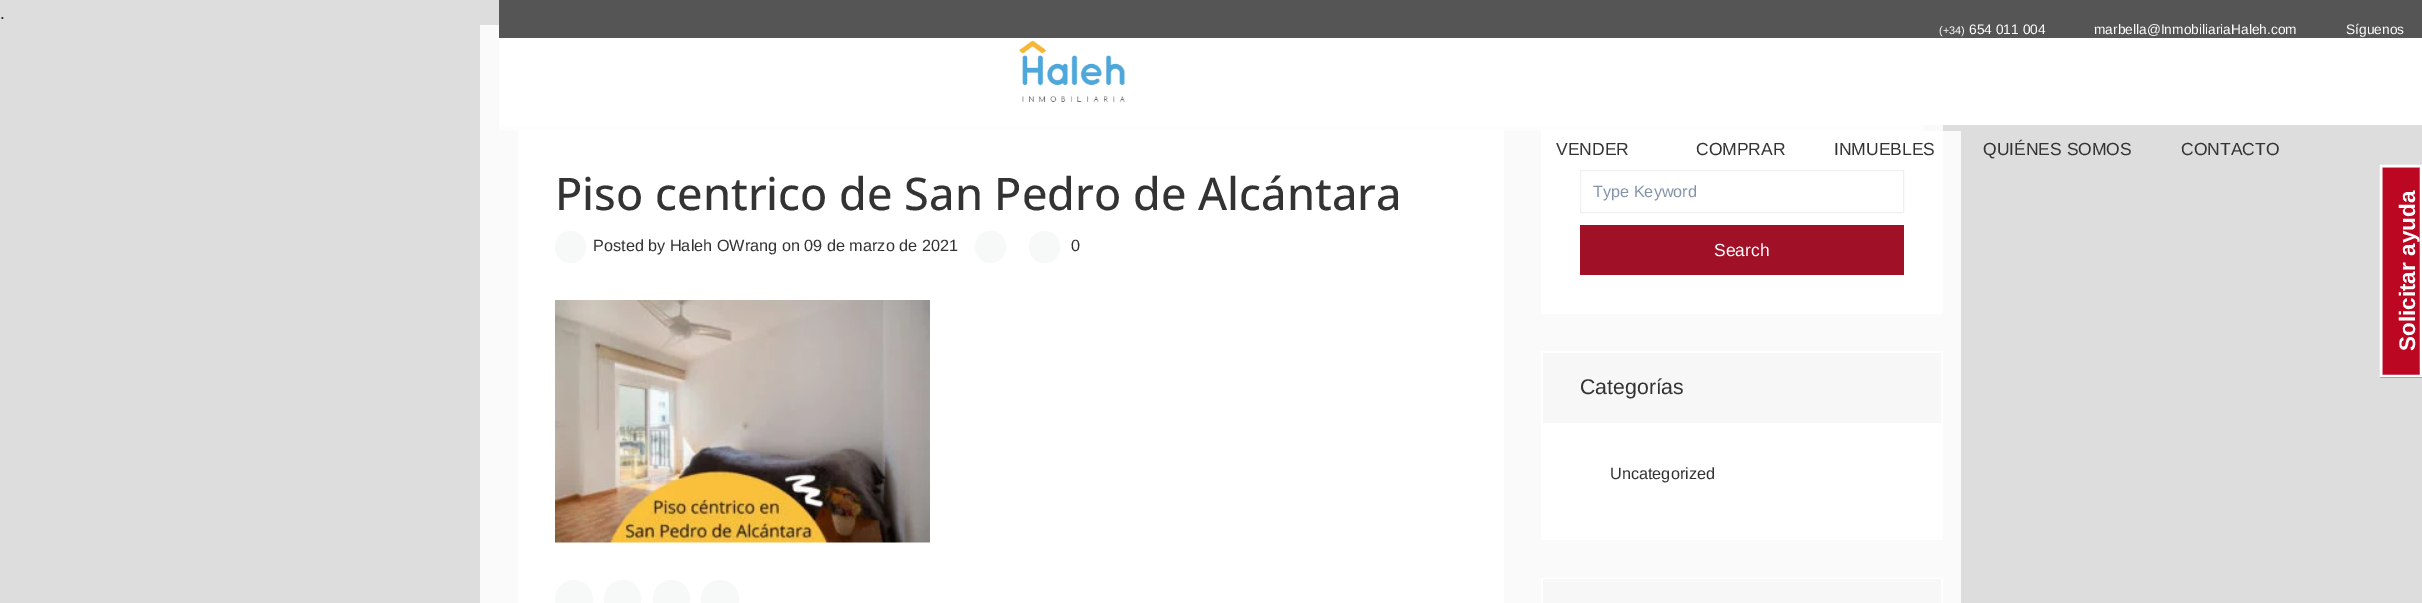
%!PS
<< /PageSize [2422 603] >> setpagedevice
/rgb { 3 { 255 div 3 1 roll } repeat setrgbcolor } def
/font { [ exch dup neg 0 0 3 -1 roll 0 0 ] selectfont } def
/text { moveto show } def
/circle { newpath 0 360 arc closepath } def
/roundrect { 5 dict begin { /r /h /w /y /x } { exch def } forall
  x r add y moveto x w add y 2 copy h add r arct x w add y h add x 1 index r arct
  x y h add x y r arct x y 2 copy exch w add exch r arct closepath end } def
/picture { 5 dict begin { /h /w /y /x /name } { exch def } forall
  gsave x y translate w h scale
  w h 8 [w 0 0 h 0 0] name (r) file false 3 colorimage grestore end } def
0 603 translate 1 -1 scale
4 setmiterlimit
221 221 221 rgb
0 0 2422 603 rectfill
250 250 250 rgb
480 25 1463 578 rectfill
253 253 253 rgb
499 125 1425 6 rectfill
255 255 255 rgb
499 38 1923 87 rectfill
85 85 85 rgb
499 0 1923 38 rectfill
(img_01.rgb) 1019 40 106 62 picture
250 250 250 rgb
1943 131 18 472 rectfill
255 255 255 rgb
518 131 986 472 rectfill
247 248 248 rgb
555 231 31 32 15.5 roundrect fill
975 231 31 32 15.5 roundrect fill
1029 231 31 32 15.5 roundrect fill
(img_02.rgb) 555 300 375 243 picture
574 599 19 circle fill
604 580 37 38 18.5 roundrect fill
653 580 37 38 18.5 roundrect fill
720 599 19 circle fill
255 255 255 rgb
1541 131 402 183 rectfill
240 240 240 rgb
1580.5 170.5 323 42 rectstroke
160 17 39 rgb
1580 225 324 50 rectfill
255 255 255 rgb
1541 351 402 189 rectfill
247 247 247 rgb
1543 353 398 70 rectfill
255 255 255 rgb
1541 578 402 25 rectfill
247 247 247 rgb
1543 579 398 24 rectfill
188 7 35 rgb
2380 167 42 211 rectfill
255 255 255 rgb
2.5 setlinewidth
2381 376 moveto 0 -210 rlineto 40 0 rlineto 0 210 rlineto closepath stroke
/LiberationSans-Regular 17.5 font
51 51 51 rgb
(.) 0 19 text
/LiberationSans-Regular 11 font
255 255 255 rgb
(\(+34\)) 1939 34 text
/LiberationSans-Regular 13.75 font
(654 011 004) 1969 34 text
(marbella@InmobiliariaHaleh.com) 2094 34 text
(Síguenos) 2346 34 text
/LiberationSans-Regular 17.5 font
51 51 51 rgb
(VENDER) 1556 155 text
(COMPRAR) 1696 155 text
(INMUEBLES) 1834 155 text
(QUIÉNES SOMOS) 1983 155 text
(CONTACTO) 2181 155 text
/OpenSans-Medium 45 font
(Piso centrico de San Pedro de Alcántara) 555 210 text
/LiberationSans-Regular 16.25 font
(Posted by Haleh OWrang on 09 de marzo de 2021) 593 251 text
(0) 1071 251 text
133 147 169 rgb
(Type Keyword) 1593 197 text
/LiberationSans-Regular 17.5 font
255 255 255 rgb
(Search) 1714 256 text
/LiberationSans-Regular 21.25 font
51 51 51 rgb
(Categorías) 1580 394 text
/LiberationSans-Regular 16.25 font
(Uncategorized) 1610 479 text
/LiberationSans-Bold 22.5 font
255 255 255 rgb
gsave 2415 351 translate -90 rotate 0 0 moveto (Solicitar ayuda) show grestore
showpage
